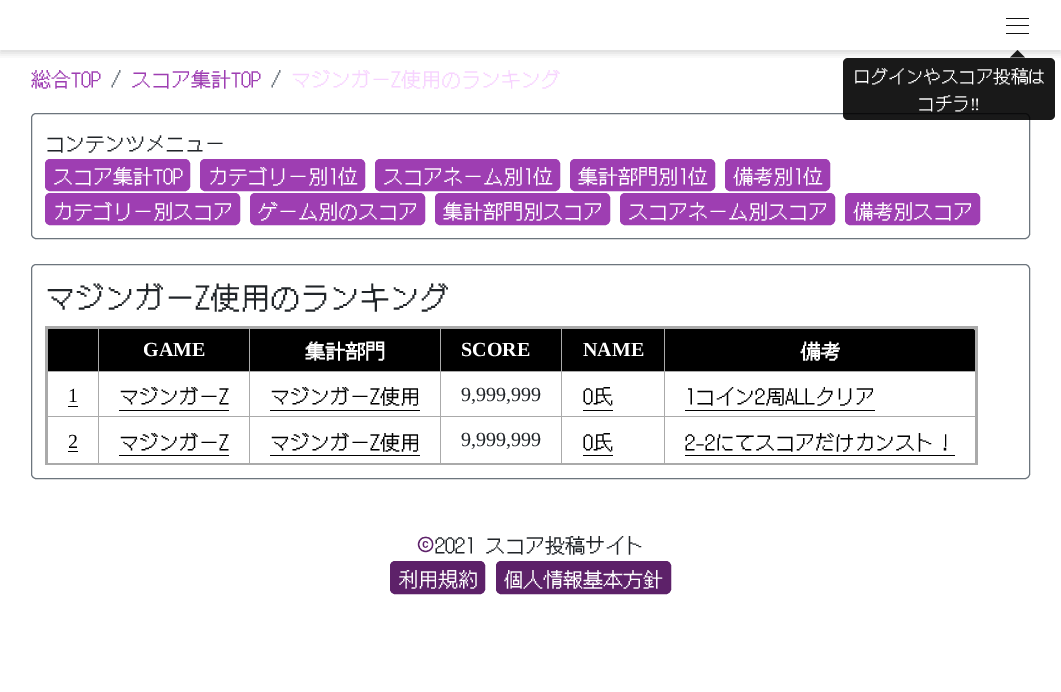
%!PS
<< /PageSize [1061 692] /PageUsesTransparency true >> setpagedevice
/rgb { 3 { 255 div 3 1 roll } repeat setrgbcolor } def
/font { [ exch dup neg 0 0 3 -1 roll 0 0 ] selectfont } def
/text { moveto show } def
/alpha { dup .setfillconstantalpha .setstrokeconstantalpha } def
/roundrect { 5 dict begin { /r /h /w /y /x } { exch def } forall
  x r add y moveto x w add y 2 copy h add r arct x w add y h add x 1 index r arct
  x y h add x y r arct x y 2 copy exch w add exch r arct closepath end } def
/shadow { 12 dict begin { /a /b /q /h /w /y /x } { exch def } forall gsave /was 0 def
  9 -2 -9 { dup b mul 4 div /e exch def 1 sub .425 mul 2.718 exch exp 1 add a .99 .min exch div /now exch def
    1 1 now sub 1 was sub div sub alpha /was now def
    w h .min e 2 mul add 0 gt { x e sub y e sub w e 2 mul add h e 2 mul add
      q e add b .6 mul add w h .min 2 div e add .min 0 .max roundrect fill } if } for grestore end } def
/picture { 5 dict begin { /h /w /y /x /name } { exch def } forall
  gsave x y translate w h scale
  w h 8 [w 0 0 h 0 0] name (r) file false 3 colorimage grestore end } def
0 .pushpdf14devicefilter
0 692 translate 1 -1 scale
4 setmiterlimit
255 255 255 rgb
0 0 1061 692 rectfill
26 26 26 rgb
1025 57.5 moveto -15 0 rlineto 7.5 -7.5 rlineto closepath fill
108 117 125 rgb
31.5 113.5 998 125 4.5 roundrect stroke
0.9 alpha
0 0 0 rgb
843 58 212 62 5 roundrect fill
gsave
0 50 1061 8 rectclip
1 alpha
0 3 1061 50 0 4 0.16 shadow
grestore
1 alpha
17 17 17 rgb
1006 18 23 1 rectfill
1006 25 23 1 rectfill
1006 33 23 1 rectfill
158 62 178 rgb
45.5 159.5 144 31 4.5 roundrect gsave fill grestore
stroke
200.5 159.5 164 31 4.5 roundrect gsave fill grestore
stroke
375.5 159.5 184 31 4.5 roundrect gsave fill grestore
stroke
570.5 159.5 144 31 4.5 roundrect gsave fill grestore
stroke
725.5 159.5 104 31 4.5 roundrect gsave fill grestore
stroke
45.5 193.5 194 31 4.5 roundrect gsave fill grestore
stroke
250.5 193.5 174 31 4.5 roundrect gsave fill grestore
stroke
435.5 193.5 174 31 4.5 roundrect gsave fill grestore
stroke
620.5 193.5 214 31 4.5 roundrect gsave fill grestore
stroke
845.5 193.5 134 31 4.5 roundrect gsave fill grestore
stroke
108 117 125 rgb
31.5 264.5 998 214 4.5 roundrect stroke
0 0 0 rgb
52 328 moveto 47 0 rlineto 0 43 rlineto -53 0 rlineto 0 -37 rlineto 0 -3.5 2.5 -6 6 -6 rcurveto closepath fill
170 170 170 rgb
664 371 312 1 rectfill
664 416 312 1 rectfill
664 416 1 48 rectfill
561 416 104 1 rectfill
664 371 1 47 rectfill
561 371 104 1 rectfill
561 416 1 48 rectfill
440 416 123 1 rectfill
561 371 1 47 rectfill
440 371 123 1 rectfill
440 416 1 48 rectfill
249 416 192 1 rectfill
440 371 1 47 rectfill
249 371 192 1 rectfill
249 416 1 48 rectfill
98 416 152 1 rectfill
249 371 1 47 rectfill
98 371 152 1 rectfill
98 416 1 48 rectfill
46 416 53 1 rectfill
98 371 1 47 rectfill
46 371 53 1 rectfill
98 328 1 45 rectfill
249 328 1 45 rectfill
440 328 1 45 rectfill
0 0 0 rgb
441 329 223 42 rectfill
170 170 170 rgb
561 328 1 45 rectfill
0 0 0 rgb
664 328 moveto 306 0 rlineto 3.5 0 6 2.5 6 6 rcurveto 0 37 rlineto -312 0 rlineto closepath fill
170 170 170 rgb
664 328 1 45 rectfill
45 326 933 3 rectfill
975 326 3 139 rectfill
45 463 933 2 rectfill
45 326 3 139 rectfill
0 0 0 rgb
99 329 150 42 rectfill
250 329 190 42 rectfill
68 406 10 1 rectfill
119 410 110 1 rectfill
270 410 150 1 rectfill
583 410 30 1 rectfill
685 410 190 1 rectfill
68 451 10 1 rectfill
119 455 110 1 rectfill
270 455 150 1 rectfill
583 455 30 1 rectfill
685 455 270 1 rectfill
(img_01.rgb) 417 536 17 17 picture
93 33 105 rgb
390.5 561.5 94 32 4.5 roundrect gsave fill grestore
stroke
496.5 561.5 174 32 4.5 roundrect gsave fill grestore
stroke
/DotGothic16-Regular 17.5 font
255 255 255 rgb
(ログインやスコア投稿は) 853 83 text
(コチラ) 917 110 text
/LiberationSerif-Regular 17.5 font
(‼) 970 110 text
/DotGothic16-Regular 20 font
158 62 178 rgb
(総合TOP) 31 87 text
108 117 125 rgb
(/) 111 87 text
158 62 178 rgb
(スコア集計TOP) 131 87 text
108 117 125 rgb
(/) 271 87 text
247 211 255 rgb
(マジンガーZ使用のランキング) 291 87 text
33 37 41 rgb
(コンテンツメニュー) 45 151 text
255 255 255 rgb
(スコア集計TOP) 53 184 text
(カテゴリー別1位) 208 184 text
(スコアネーム別1位) 383 184 text
(集計部門別1位) 578 184 text
(備考別1位) 733 184 text
(カテゴリー別スコア) 53 219 text
(ゲーム別のスコア) 258 219 text
(集計部門別スコア) 443 219 text
(スコアネーム別スコア) 628 219 text
(備考別スコア) 853 219 text
/DotGothic16-Regular 30 font
33 37 41 rgb
(マジンガーZ使用のランキング) 45 309 text
/LiberationSerif-Bold 20 font
255 255 255 rgb
(GAME) 143 356 text
/DotGothic16-Bold 20 font
(集計部門) 305 359 text
/LiberationSerif-Bold 20 font
(SCORE) 461 356 text
(NAME) 583 356 text
/DotGothic16-Bold 20 font
(備考) 800 359 text
/LiberationSerif-Regular 20 font
0 0 0 rgb
(1) 68 402 text
/DotGothic16-Regular 20 font
(マジンガーZ) 119 404 text
(マジンガーZ使用) 270 404 text
/LiberationSerif-Regular 20 font
33 37 41 rgb
(9,999,999) 461 401 text
/DotGothic16-Regular 20 font
0 0 0 rgb
(O氏) 583 404 text
(1コイン2周ALLクリア) 685 404 text
/LiberationSerif-Regular 20 font
(2) 68 448 text
/DotGothic16-Regular 20 font
(マジンガーZ) 119 450 text
(マジンガーZ使用) 270 450 text
/LiberationSerif-Regular 20 font
33 37 41 rgb
(9,999,999) 461 446 text
/DotGothic16-Regular 20 font
0 0 0 rgb
(O氏) 583 450 text
(2-2にてスコアだけカンスト！) 685 450 text
33 37 41 rgb
(2021 スコア投稿サイト) 435 553 text
255 255 255 rgb
(利用規約) 398 587 text
(個人情報基本方針) 503 587 text
.poppdf14devicefilter showpage
